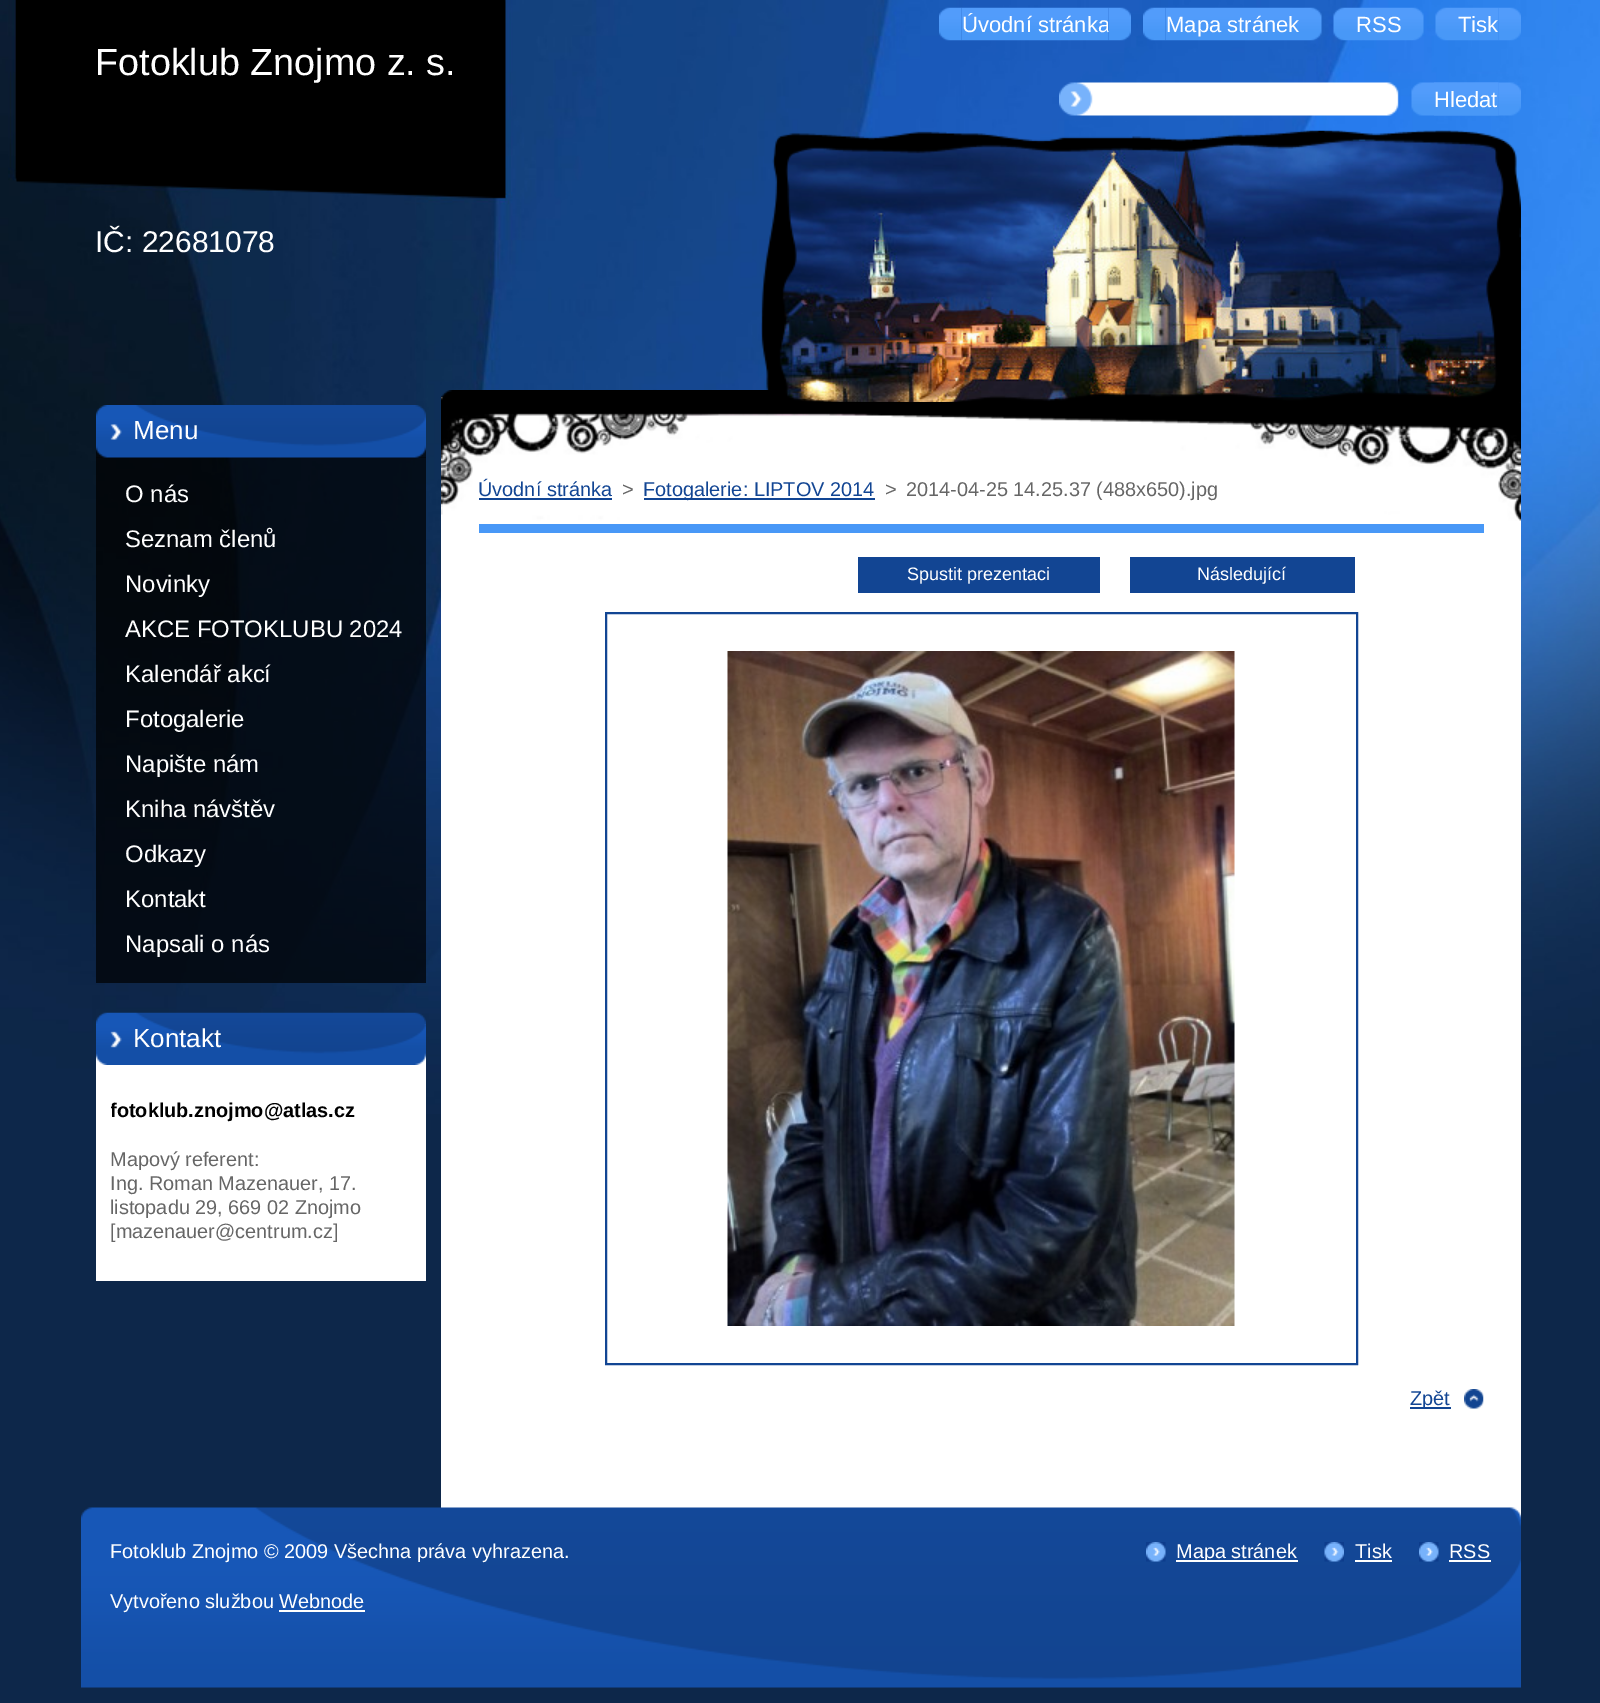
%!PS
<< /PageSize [1600 1703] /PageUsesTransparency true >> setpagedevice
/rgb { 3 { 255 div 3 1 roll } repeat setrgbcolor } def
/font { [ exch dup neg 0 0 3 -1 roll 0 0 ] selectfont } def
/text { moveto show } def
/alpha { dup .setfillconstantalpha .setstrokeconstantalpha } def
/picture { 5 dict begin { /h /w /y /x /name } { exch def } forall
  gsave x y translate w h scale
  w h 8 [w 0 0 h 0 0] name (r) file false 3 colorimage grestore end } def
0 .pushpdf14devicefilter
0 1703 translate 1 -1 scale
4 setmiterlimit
13 39 74 rgb
0 0 1600 1703 rectfill
(img_01.rgb) 0 0 1600 1114 picture
(img_02.rgb) 16 0 490 199 picture
255 255 255 rgb
441 397 1080 1111 rectfill
(img_03.rgb) 939 7 23 34 picture
(img_04.rgb) 961 7 148 34 picture
(img_06.rgb) 1143 7 23 34 picture
(img_07.rgb) 1165 7 134 34 picture
(img_08.rgb) 1299 7 23 34 picture
(img_09.rgb) 1333 7 23 34 picture
(img_10.rgb) 1356 7 45 34 picture
(img_11.rgb) 1401 7 23 34 picture
(img_12.rgb) 1435 7 23 34 picture
(img_13.rgb) 1458 7 41 34 picture
(img_14.rgb) 1498 7 23 34 picture
(img_15.rgb) 1059 82 340 34 picture
(img_16.rgb) 1411 82 23 34 picture
(img_17.rgb) 1434 82 65 34 picture
(img_19.rgb) 1498 82 23 34 picture
(img_18.rgb) 1434 82 65 34 picture
(img_20.rgb) 441 390 1080 15 picture
(img_22.rgb) 777 141 728 261 picture
(img_21.rgb) 761 130 760 272 picture
0.7 alpha
0 0 0 rgb
96 457 330 526 rectfill
1 alpha
(img_23.rgb) 96 405 330 53 picture
255 255 255 rgb
96 1024 330 257 rectfill
(img_24.rgb) 96 1012 330 53 picture
(img_25.rgb) 441 405 1080 116 picture
18 69 147 rgb
479 498 133 2 rectfill
644 498 231 2 rectfill
72 152 247 rgb
479 524 1005 9 rectfill
18 69 147 rgb
858 557 242 36 rectfill
1130 557 225 36 rectfill
2 setlinewidth
606 613 751 751 rectstroke
(img_26.rgb) 727 651 508 675 picture
(img_27.rgb) 1464 1389 20 20 picture
1410 1407 41 2 rectfill
(img_28.rgb) 81 1507 1440 181 picture
255 255 255 rgb
279 1610 86 2 rectfill
(img_29.rgb) 1146 1542 20 20 picture
1176 1560 122 2 rectfill
(img_30.rgb) 1324 1542 20 20 picture
1355 1560 37 2 rectfill
(img_31.rgb) 1419 1542 20 20 picture
1449 1560 42 2 rectfill
/LiberationSans-Regular 22 font
(Úvodní stránka) 962 32 text
(img_05.rgb) 1108 7 23 34 picture
(Mapa stránek) 1166 32 text
(RSS) 1356 32 text
(Tisk) 1458 32 text
/LiberationSans-Regular 37.75 font
(Fotoklub Znojmo z. s.) 95 75 text
/LiberationSans-Regular 22 font
(Hledat) 1434 107 text
/LiberationSans-Regular 30 font
(IČ: 22681078) 95 252 text
/LiberationSans-Regular 26 font
(Menu) 133 439 text
/LiberationSans-Regular 23.9 font
(O nás) 125 502 text
(Seznam členů) 125 547 text
(Novinky) 125 592 text
(AKCE FOTOKLUBU 2024) 125 637 text
(Kalendář akcí) 125 682 text
(Fotogalerie) 125 727 text
(Napište nám) 125 772 text
(Kniha návštěv) 125 817 text
(Odkazy) 125 862 text
(Kontakt) 125 907 text
(Napsali o nás) 125 952 text
/LiberationSans-Regular 26 font
(Kontakt) 133 1047 text
gsave
111 1095 300 156 rectclip
/LiberationSans-Bold 19.9 font
0 0 0 rgb
(fotoklub.znojmo@atlas.cz) 110 1117 text
grestore
/LiberationSans-Regular 19.9 font
102 102 102 rgb
(Mapový referent:) 110 1166 text
(Ing. Roman Mazenauer, 17.) 110 1190 text
(listopadu 29, 669 02 Znojmo) 110 1214 text
([mazenauer@centrum.cz]) 110 1238 text
18 69 147 rgb
(Úvodní stránka) 478 496 text
102 102 102 rgb
(>) 622 496 text
18 69 147 rgb
(Fotogalerie: LIPTOV 2014) 643 496 text
102 102 102 rgb
(>) 885 496 text
(2014-04-25 14.25.37 \(488x650\).jpg) 906 496 text
/LiberationSans-Regular 18 font
255 255 255 rgb
(Spustit prezentaci) 907 580 text
(Následující) 1197 580 text
/LiberationSans-Regular 19.9 font
18 69 147 rgb
(Zpět) 1410 1405 text
255 255 255 rgb
(Fotoklub Znojmo © 2009 Všechna práva vyhrazena.) 110 1558 text
(Vytvořeno službou Webnode) 110 1608 text
(Mapa stránek) 1176 1558 text
(Tisk) 1355 1558 text
(RSS) 1449 1558 text
.poppdf14devicefilter showpage
